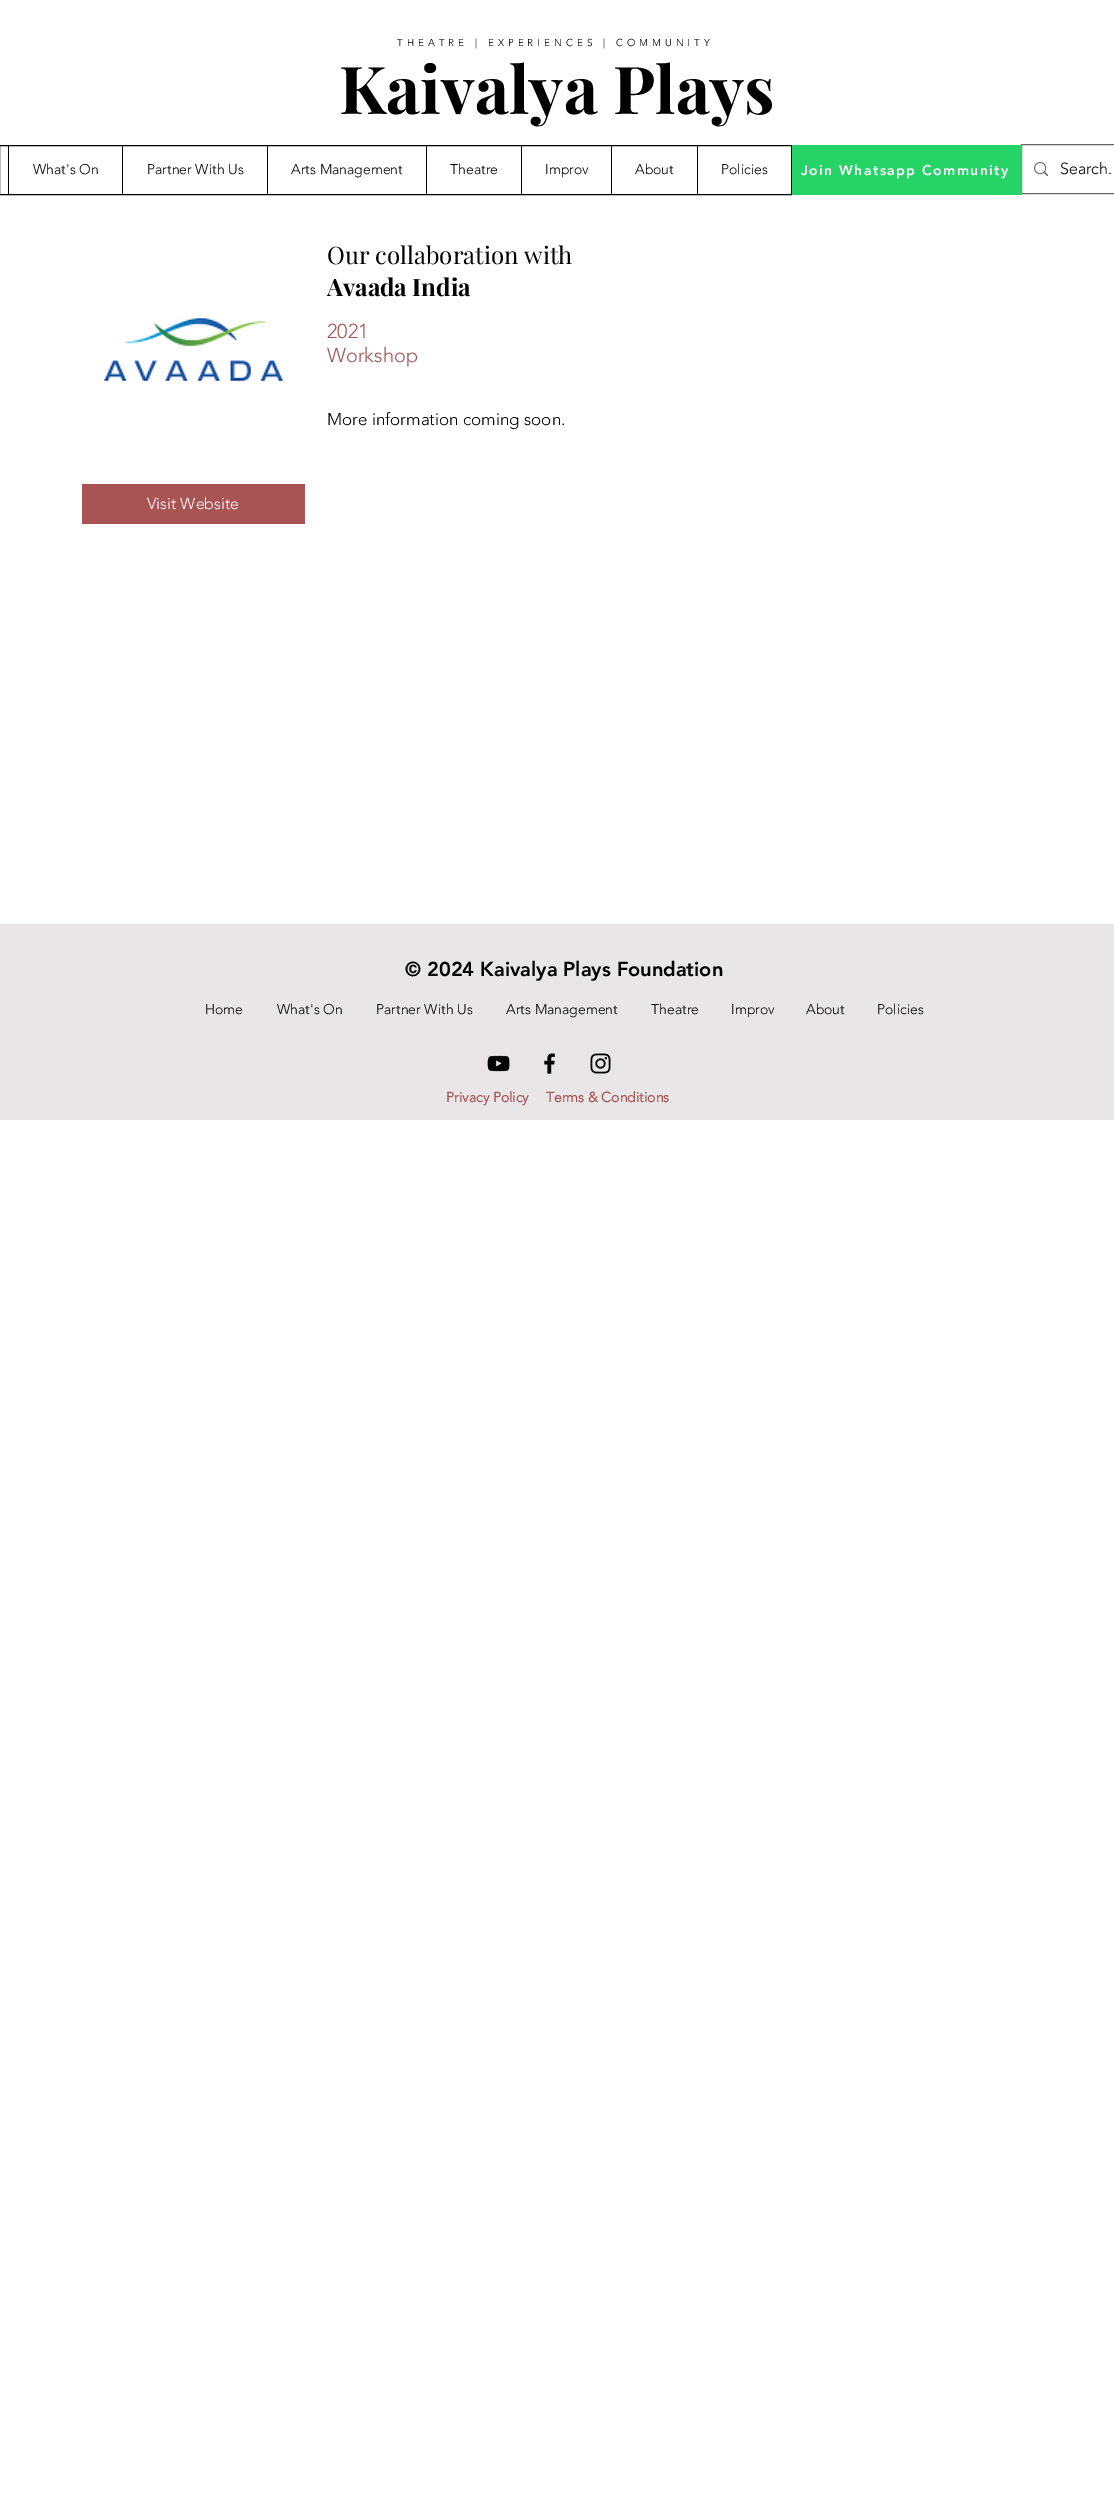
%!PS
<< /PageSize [1114 2510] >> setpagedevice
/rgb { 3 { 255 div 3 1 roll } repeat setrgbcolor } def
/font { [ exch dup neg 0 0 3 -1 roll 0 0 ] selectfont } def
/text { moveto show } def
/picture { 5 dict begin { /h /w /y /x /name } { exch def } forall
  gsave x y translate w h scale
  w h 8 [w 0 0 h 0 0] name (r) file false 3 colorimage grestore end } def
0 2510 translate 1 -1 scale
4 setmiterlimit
255 255 255 rgb
0 0 1114 2510 rectfill
0 0 0 rgb
-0.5 145.5 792 49 rectstroke
8 146 1 48 rectfill
122 146 1 48 rectfill
267 146 1 48 rectfill
426 146 1 48 rectfill
521 146 1 48 rectfill
611 146 1 48 rectfill
697 146 1 48 rectfill
102 102 102 rgb
1021.5 144.5 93 49 rectstroke
37 211 102 rgb
792 145 230 50 rectfill
(img_01.rgb) 1034 162 14 14 picture
(img_02.rgb) 102 316 183 67 picture
168 84 84 rgb
82 484 223 40 rectfill
232 230 230 rgb
0 924 1114 196 rectfill
(img_03.rgb) 487 1055 23 17 picture
(img_04.rgb) 544 1053 11 21 picture
(img_05.rgb) 590 1053 21 21 picture
/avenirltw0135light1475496-Light 10 font
0 0 0 rgb
397 46 moveto 4 0 (THEATRE | EXPERIENCES | COMMUNITY) ashow
/PlayfairDisplay-Bold 66 font
(Kaivalya Plays) 339 114 text
/avenirltw0135light1475496-Light 14 font
(What's On) 33 174 text
(Partner With Us) 147 174 text
(Arts Management) 291 174 text
(Theatre) 450 174 text
(Improv) 545 174 text
(About) 635 174 text
(Policies) 721 174 text
/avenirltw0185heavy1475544-Black 14 font
255 255 255 rgb
801 175 moveto 1.4 0 (Join Whatsapp Community) ashow
/avenirltw0135light1475496-Light 16 font
0 0 0 rgb
(Search.) 1060 174 text
/PlayfairDisplay-Regular 24 font
(Our collaboration with) 327 264 text
/PlayfairDisplay-Bold 24 font
(Avaada India) 327 296 text
/avenirltw0135light1475496-Light 20 font
168 84 84 rgb
(2021) 327 338 text
(Workshop) 327 362 text
/avenirltw0135light1475496-Light 17 font
0 0 0 rgb
(More information coming soon.) 327 425 text
/avenirltw0135light1475496-Light 16 font
255 255 255 rgb
(Visit Website) 147 509 text
/avenirltw0185heavy1475544-Black 20 font
0 0 0 rgb
(© 2024 Kaivalya Plays Foundation) 405 976 text
/avenirltw0135light1475496-Light 14 font
(Home) 205 1014 text
(What's On) 277 1014 text
(Partner With Us) 376 1014 text
(Arts Management) 506 1014 text
(Theatre) 651 1014 text
(Improv) 731 1014 text
(About) 806 1014 text
(Policies) 877 1014 text
/avenirltw0135light1475496-Bold 14 font
168 84 84 rgb
(Privacy Policy) 446 1102 text
(Terms & Conditions) 546 1102 text
showpage
